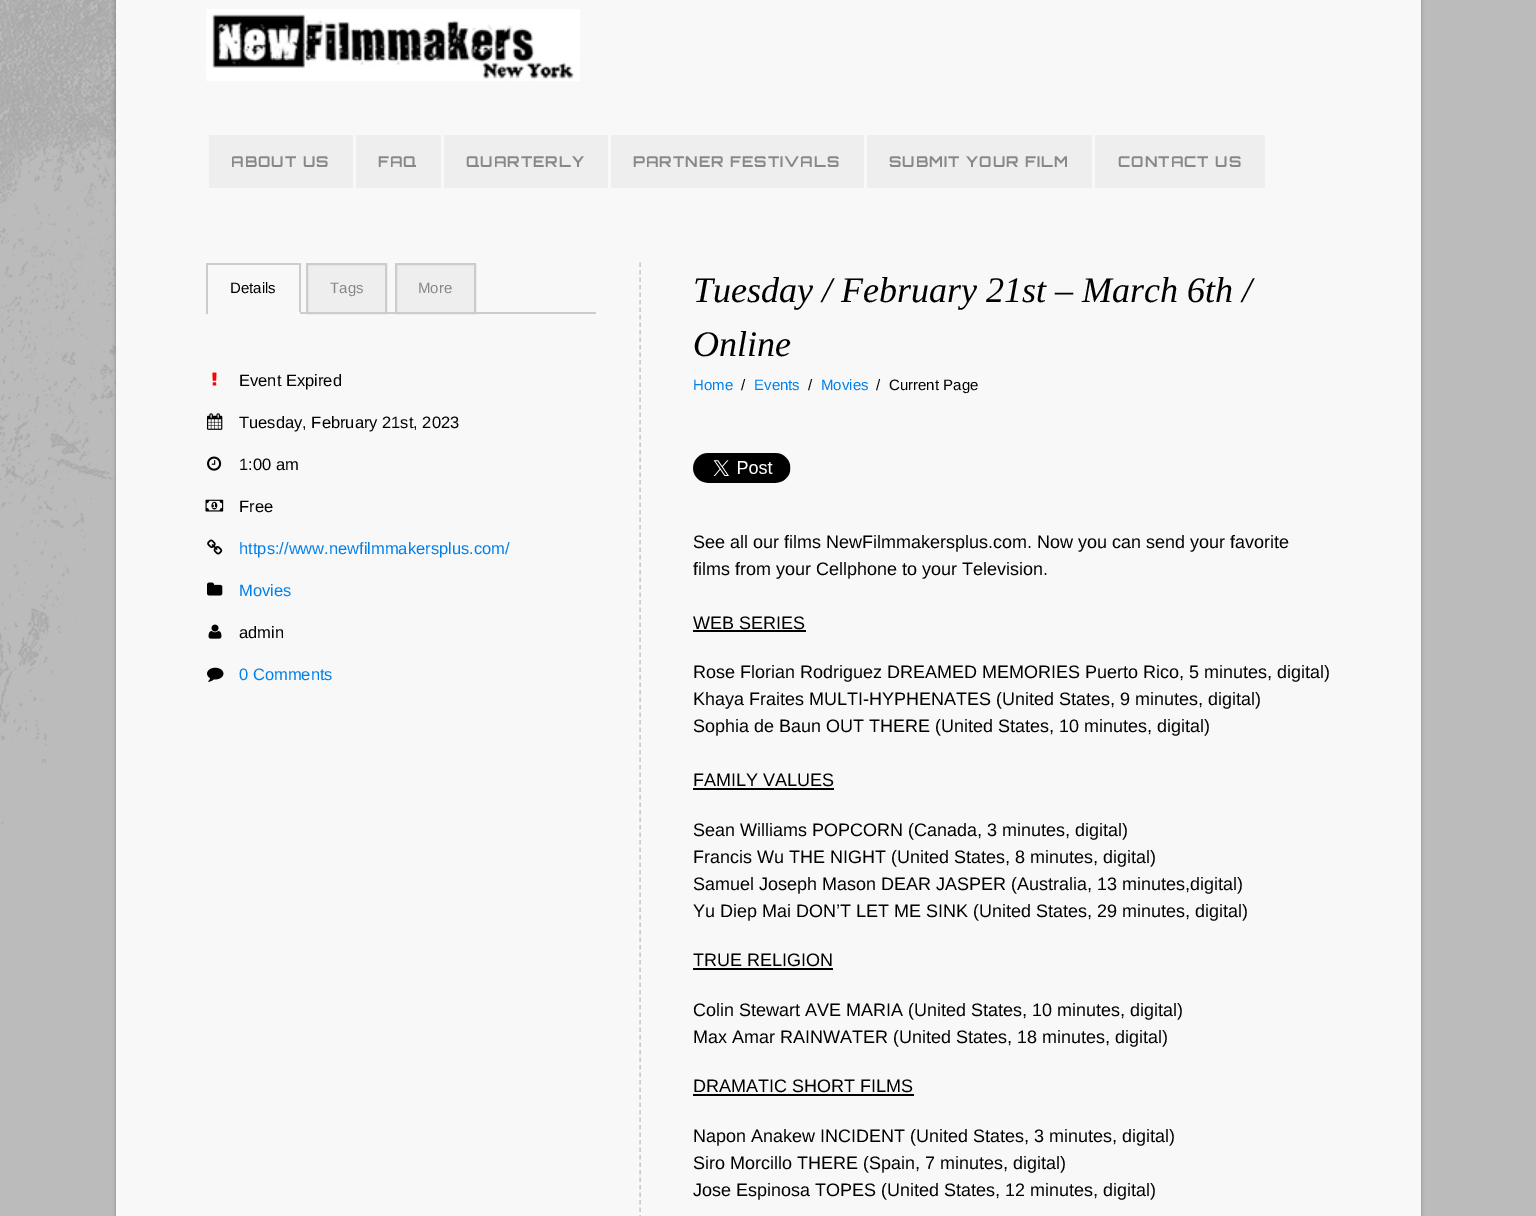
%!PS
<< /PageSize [1536 1216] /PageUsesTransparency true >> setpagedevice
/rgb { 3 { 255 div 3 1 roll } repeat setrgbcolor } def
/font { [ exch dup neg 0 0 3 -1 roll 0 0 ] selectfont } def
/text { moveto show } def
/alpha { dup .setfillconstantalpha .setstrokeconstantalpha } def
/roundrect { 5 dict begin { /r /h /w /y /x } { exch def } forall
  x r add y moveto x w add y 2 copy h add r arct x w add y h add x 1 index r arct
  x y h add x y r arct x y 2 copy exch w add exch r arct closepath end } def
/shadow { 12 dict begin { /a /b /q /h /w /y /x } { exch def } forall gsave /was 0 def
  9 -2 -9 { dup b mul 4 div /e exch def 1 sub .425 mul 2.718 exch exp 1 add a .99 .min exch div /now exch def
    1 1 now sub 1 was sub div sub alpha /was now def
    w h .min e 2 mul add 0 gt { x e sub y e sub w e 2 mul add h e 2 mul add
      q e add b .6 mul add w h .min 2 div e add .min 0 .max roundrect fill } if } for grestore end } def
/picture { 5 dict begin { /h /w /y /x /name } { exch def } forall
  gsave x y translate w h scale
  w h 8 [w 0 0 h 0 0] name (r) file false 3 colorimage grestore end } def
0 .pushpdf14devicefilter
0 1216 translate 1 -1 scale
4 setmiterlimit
187 187 187 rgb
0 0 1536 1216 rectfill
(img_01.rgb) 0 0 116 825 picture
0 0 0 rgb
116 -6 1305 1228 0 2 0.3 shadow
248 248 248 rgb
116 0 1305 1216 rectfill
(img_02.rgb) 206 9 374 72 picture
238 238 238 rgb
209 135 144 53 rectfill
356 135 85 53 rectfill
444 135 164 53 rectfill
611 135 253 53 rectfill
867 135 225 53 rectfill
1095 135 170 53 rectfill
204 204 204 rgb
301 312 295 2 rectfill
206 263 94 2 rectfill
299 263 2 51 rectfill
248 248 248 rgb
299 312 1 2 rectfill
204 204 204 rgb
206 263 2 51 rectfill
238 238 238 rgb
307 264 moveto 79 0 rlineto 0 49 rlineto -79 0 rlineto closepath gsave fill grestore
204 204 204 rgb
2 setlinewidth
stroke
238 238 238 rgb
396 264 moveto 79 0 rlineto 0 49 rlineto -79 0 rlineto closepath gsave fill grestore
204 204 204 rgb
stroke
(img_03.rgb) 212 372 5 14 picture
(img_04.rgb) 207 413 16 17 picture
(img_05.rgb) 207 456 15 15 picture
(img_06.rgb) 205 499 19 13 picture
(img_07.rgb) 207 539 16 16 picture
(img_08.rgb) 207 582 16 14 picture
(img_09.rgb) 208 624 14 15 picture
(img_10.rgb) 207 667 17 15 picture
1.5 setlinewidth
[4.5 3] 0 setdash
640 262.5 moveto 0 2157 rlineto stroke
(img_11.rgb) 693 453 98 30 picture
0 0 0 rgb
693 630 113 2 rectfill
693 788 141 2 rectfill
693 968 140 2 rectfill
693 1094 221 2 rectfill
/Orbitron-Bold 15 font
136 136 136 rgb
231 167 moveto 1 0 (ABOUT US) ashow
378 167 moveto 1 0 (FAQ) ashow
466 167 moveto 1 0 (QUARTERLY) ashow
633 167 moveto 1 0 (PARTNER FESTIVALS) ashow
889 167 moveto 1 0 (SUBMIT YOUR FILM) ashow
1118 167 moveto 1 0 (CONTACT US) ashow
/LiberationSans-Regular 15 font
0 0 0 rgb
(Details) 230 293 text
136 136 136 rgb
(Tags) 330 293 text
(More) 418 293 text
/LiberationSans-Regular 16.5 font
0 0 0 rgb
(Event Expired) 239 386 text
(Tuesday, February 21st, 2023) 239 428 text
(1:00 am) 239 470 text
(Free) 239 512 text
0 128 232 rgb
(https://www.newfilmmakersplus.com/) 239 554 text
(Movies) 239 596 text
0 0 0 rgb
(admin) 239 638 text
0 128 232 rgb
(0 Comments) 239 680 text
/LiberationSerif-Italic 36 font
0 0 0 rgb
(Tuesday / February 21st – March 6th /) 693 302 text
(Online) 693 356 text
/LiberationSans-Regular 15 font
0 128 232 rgb
(Home) 693 390 text
0 0 0 rgb
(/) 741 390 text
0 128 232 rgb
(Events) 754 390 text
0 0 0 rgb
(/) 808 390 text
0 128 232 rgb
(Movies) 821 390 text
0 0 0 rgb
(/) 876 390 text
(Current Page) 889 390 text
/LiberationSans-Regular 18 font
(See all our films NewFilmmakersplus.com. Now you can send your favorite) 693 548 text
(films from your Cellphone to your Television.) 693 575 text
(WEB SERIES) 693 629 text
(Rose Florian Rodriguez DREAMED MEMORIES Puerto Rico, 5 minutes, digital\)) 693 678 text
(Khaya Fraites MULTI-HYPHENATES \(United States, 9 minutes, digital\)) 693 705 text
(Sophia de Baun OUT THERE \(United States, 10 minutes, digital\)) 693 732 text
(FAMILY VALUES) 693 786 text
(Sean Williams POPCORN \(Canada, 3 minutes, digital\)) 693 836 text
(Francis Wu THE NIGHT \(United States, 8 minutes, digital\)) 693 863 text
(Samuel Joseph Mason DEAR JASPER \(Australia, 13 minutes,digital\)) 693 890 text
(Yu Diep Mai DON’T LET ME SINK \(United States, 29 minutes, digital\)) 693 917 text
(TRUE RELIGION) 693 966 text
(Colin Stewart AVE MARIA \(United States, 10 minutes, digital\)) 693 1016 text
(Max Amar RAINWATER \(United States, 18 minutes, digital\)) 693 1043 text
(DRAMATIC SHORT FILMS) 693 1092 text
(Napon Anakew INCIDENT \(United States, 3 minutes, digital\)) 693 1142 text
(Siro Morcillo THERE \(Spain, 7 minutes, digital\)) 693 1169 text
(Jose Espinosa TOPES \(United States, 12 minutes, digital\)) 693 1196 text
.poppdf14devicefilter showpage
